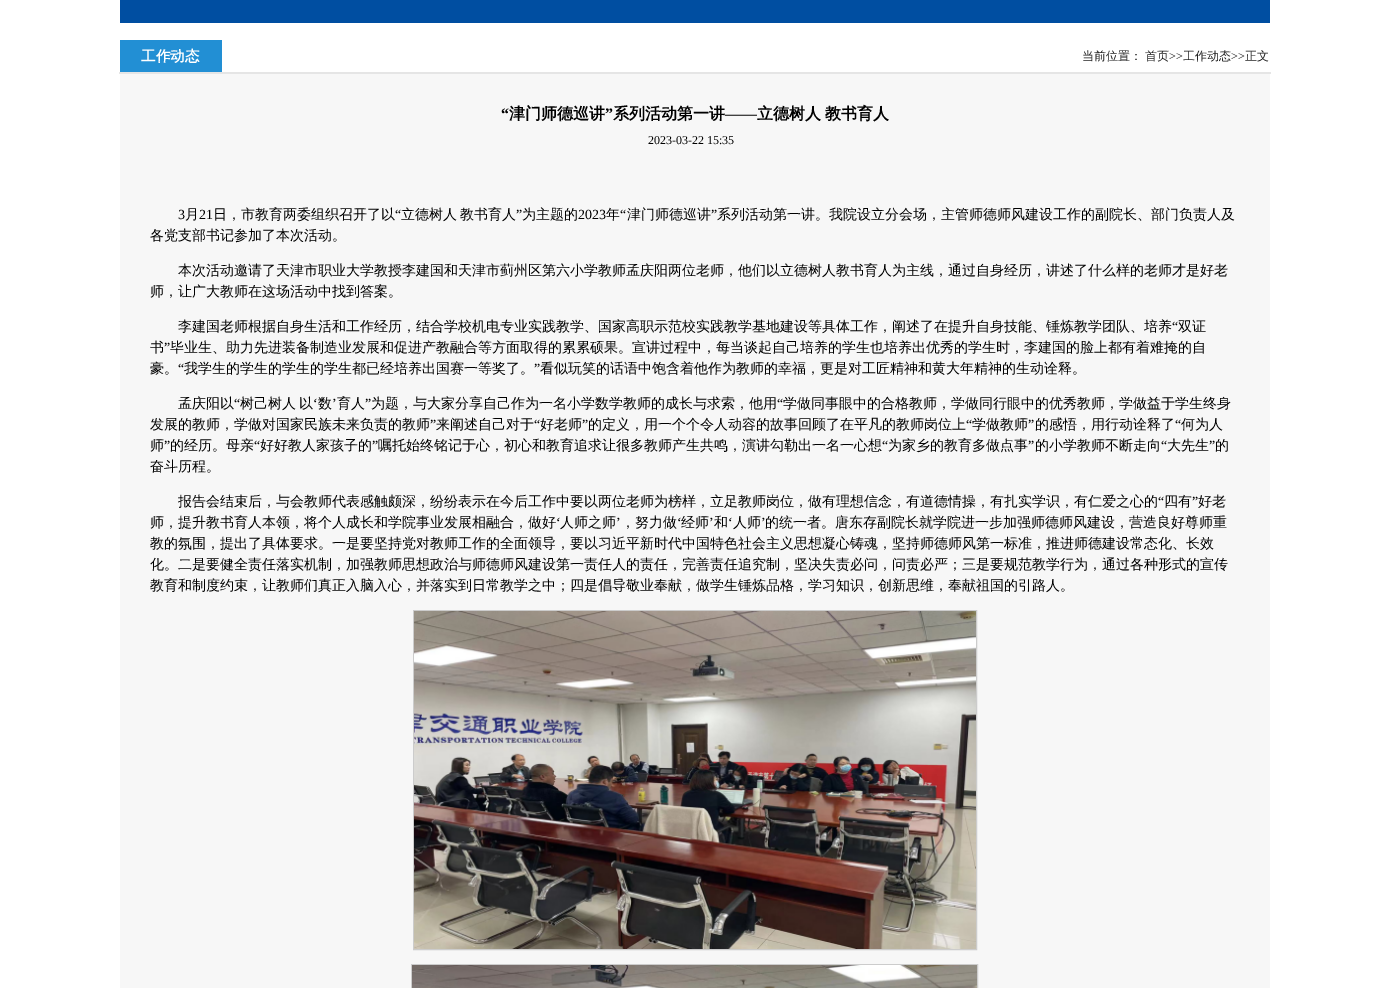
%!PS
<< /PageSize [1389 988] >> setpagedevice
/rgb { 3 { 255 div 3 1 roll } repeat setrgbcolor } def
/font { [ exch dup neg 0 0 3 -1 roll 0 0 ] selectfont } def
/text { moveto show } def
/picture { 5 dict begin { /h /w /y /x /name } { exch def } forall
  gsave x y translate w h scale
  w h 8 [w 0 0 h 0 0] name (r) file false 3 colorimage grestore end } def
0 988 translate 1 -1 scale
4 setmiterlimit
255 255 255 rgb
0 0 1389 988 rectfill
0 78 161 rgb
120 0 1150 23 rectfill
34 143 212 rgb
120 40 102 32 rectfill
247 247 247 rgb
120 74 1150 914 rectfill
229 229 229 rgb
119 72 1152 2 rectfill
204 204 204 rgb
413.5 610.5 563 339 rectstroke
(img_01.rgb) 414 611 562 338 picture
411.5 964.5 566 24 rectstroke
(img_02.rgb) 412 965 565 23 picture
/WenQuanYiZenHei-Bold 14.5 font
255 255 255 rgb
(工作动态) 141 61 text
/WenQuanYiZenHei-Medium 12 font
34 34 34 rgb
(当前位置：) 1082 60 text
(首页) 1145 60 text
/LiberationSerif-Regular 12 font
(>>) 1169 60 text
/WenQuanYiZenHei-Medium 12 font
(工作动态) 1183 60 text
/LiberationSerif-Regular 12 font
(>>) 1231 60 text
/WenQuanYiZenHei-Medium 12 font
(正文) 1245 60 text
/LiberationSerif-Bold 16 font
0 0 0 rgb
(“) 501 119 text
/WenQuanYiZenHei-Bold 16 font
(津门师德巡讲) 509 119 text
/LiberationSerif-Bold 16 font
(”) 605 119 text
/WenQuanYiZenHei-Bold 16 font
(系列活动第一讲) 613 119 text
/LiberationSerif-Bold 16 font
(——) 725 119 text
/WenQuanYiZenHei-Bold 16 font
757 119 moveto -1 0 32 (立德树人 教书育人) widthshow
/LiberationSerif-Regular 12 font
(2023-03-22 15:35) 648 144 text
/LiberationSerif-Regular 14 font
(3) 178 219 text
/WenQuanYiZenHei-Medium 14 font
(月) 185 219 text
/LiberationSerif-Regular 14 font
(21) 199 219 text
/WenQuanYiZenHei-Medium 14 font
(日，市教育两委组织召开了以) 213 219 text
/LiberationSerif-Regular 14 font
(“) 395 219 text
/WenQuanYiZenHei-Medium 14 font
401 219 moveto -1 0 32 (立德树人 教书育人) widthshow
/LiberationSerif-Regular 14 font
(”) 516 219 text
/WenQuanYiZenHei-Medium 14 font
(为主题的) 522 219 text
/LiberationSerif-Regular 14 font
(2023) 578 219 text
/WenQuanYiZenHei-Medium 14 font
(年) 606 219 text
/LiberationSerif-Regular 14 font
(“) 620 219 text
/WenQuanYiZenHei-Medium 14 font
(津门师德巡讲) 627 219 text
/LiberationSerif-Regular 14 font
(”) 711 219 text
/WenQuanYiZenHei-Medium 14 font
(系列活动第一讲。我院设立分会场，主管师德师风建设工作的副院长、部门负责人及) 717 219 text
(各党支部书记参加了本次活动。) 150 240 text
(本次活动邀请了天津市职业大学教授李建国和天津市蓟州区第六小学教师孟庆阳两位老师，他们以立德树人教书育人为主线，通过自身经历，讲述了什么样的老师才是好老) 178 275 text
(师，让广大教师在这场活动中找到答案。) 150 296 text
(李建国老师根据自身生活和工作经历，结合学校机电专业实践教学、国家高职示范校实践教学基地建设等具体工作，阐述了在提升自身技能、锤炼教学团队、培养) 178 331 text
/LiberationSerif-Regular 14 font
(“) 1172 331 text
/WenQuanYiZenHei-Medium 14 font
(双证) 1178 331 text
(书) 150 352 text
/LiberationSerif-Regular 14 font
(”) 164 352 text
/WenQuanYiZenHei-Medium 14 font
(毕业生、助力先进装备制造业发展和促进产教融合等方面取得的累累硕果。宣讲过程中，每当谈起自己培养的学生也培养出优秀的学生时，李建国的脸上都有着难掩的自) 170 352 text
(豪。) 150 373 text
/LiberationSerif-Regular 14 font
(“) 178 373 text
/WenQuanYiZenHei-Medium 14 font
(我学生的学生的学生的学生都已经培养出国赛一等奖了。) 184 373 text
/LiberationSerif-Regular 14 font
(”) 534 373 text
/WenQuanYiZenHei-Medium 14 font
(看似玩笑的话语中饱含着他作为教师的幸福，更是对工匠精神和黄大年精神的生动诠释。) 540 373 text
(孟庆阳以) 178 408 text
/LiberationSerif-Regular 14 font
(“) 234 408 text
/WenQuanYiZenHei-Medium 14 font
240 408 moveto -1 0 32 (树己树人 以) widthshow
/LiberationSerif-Regular 14 font
(‘) 313 408 text
/WenQuanYiZenHei-Medium 14 font
(数) 318 408 text
/LiberationSerif-Regular 14 font
(’) 332 408 text
/WenQuanYiZenHei-Medium 14 font
(育人) 337 408 text
/LiberationSerif-Regular 14 font
(”) 365 408 text
/WenQuanYiZenHei-Medium 14 font
(为题，与大家分享自己作为一名小学数学教师的成长与求索，他用) 371 408 text
/LiberationSerif-Regular 14 font
(“) 777 408 text
/WenQuanYiZenHei-Medium 14 font
(学做同事眼中的合格教师，学做同行眼中的优秀教师，学做益于学生终身) 783 408 text
(发展的教师，学做对国家民族未来负责的教师) 150 429 text
/LiberationSerif-Regular 14 font
(”) 430 429 text
/WenQuanYiZenHei-Medium 14 font
(来阐述自己对于) 436 429 text
/LiberationSerif-Regular 14 font
(“) 534 429 text
/WenQuanYiZenHei-Medium 14 font
(好老师) 540 429 text
/LiberationSerif-Regular 14 font
(”) 582 429 text
/WenQuanYiZenHei-Medium 14 font
(的定义，用一个个令人动容的故事回顾了在平凡的教师岗位上) 588 429 text
/LiberationSerif-Regular 14 font
(“) 966 429 text
/WenQuanYiZenHei-Medium 14 font
(学做教师) 972 429 text
/LiberationSerif-Regular 14 font
(”) 1028 429 text
/WenQuanYiZenHei-Medium 14 font
(的感悟，用行动诠释了) 1035 429 text
/LiberationSerif-Regular 14 font
(“) 1175 429 text
/WenQuanYiZenHei-Medium 14 font
(何为人) 1181 429 text
(师) 150 450 text
/LiberationSerif-Regular 14 font
(”) 164 450 text
/WenQuanYiZenHei-Medium 14 font
(的经历。母亲) 170 450 text
/LiberationSerif-Regular 14 font
(“) 254 450 text
/WenQuanYiZenHei-Medium 14 font
(好好教人家孩子的) 260 450 text
/LiberationSerif-Regular 14 font
(”) 372 450 text
/WenQuanYiZenHei-Medium 14 font
(嘱托始终铭记于心，初心和教育追求让很多教师产生共鸣，演讲勾勒出一名一心想) 378 450 text
/LiberationSerif-Regular 14 font
(“) 882 450 text
/WenQuanYiZenHei-Medium 14 font
(为家乡的教育多做点事) 888 450 text
/LiberationSerif-Regular 14 font
(”) 1028 450 text
/WenQuanYiZenHei-Medium 14 font
(的小学教师不断走向) 1035 450 text
/LiberationSerif-Regular 14 font
(“) 1161 450 text
/WenQuanYiZenHei-Medium 14 font
(大先生) 1167 450 text
/LiberationSerif-Regular 14 font
(”) 1209 450 text
/WenQuanYiZenHei-Medium 14 font
(的) 1215 450 text
(奋斗历程。) 150 471 text
(报告会结束后，与会教师代表感触颇深，纷纷表示在今后工作中要以两位老师为榜样，立足教师岗位，做有理想信念，有道德情操，有扎实学识，有仁爱之心的) 178 506 text
/LiberationSerif-Regular 14 font
(“) 1158 506 text
/WenQuanYiZenHei-Medium 14 font
(四有) 1164 506 text
/LiberationSerif-Regular 14 font
(”) 1192 506 text
/WenQuanYiZenHei-Medium 14 font
(好老) 1198 506 text
(师，提升教书育人本领，将个人成长和学院事业发展相融合，做好) 150 527 text
/LiberationSerif-Regular 14 font
(‘) 556 527 text
/WenQuanYiZenHei-Medium 14 font
(人师之师) 560 527 text
/LiberationSerif-Regular 14 font
(’) 616 527 text
/WenQuanYiZenHei-Medium 14 font
(，努力做) 621 527 text
/LiberationSerif-Regular 14 font
(‘) 677 527 text
/WenQuanYiZenHei-Medium 14 font
(经师) 681 527 text
/LiberationSerif-Regular 14 font
(’) 709 527 text
/WenQuanYiZenHei-Medium 14 font
(和) 714 527 text
/LiberationSerif-Regular 14 font
(‘) 728 527 text
/WenQuanYiZenHei-Medium 14 font
(人师) 733 527 text
/LiberationSerif-Regular 14 font
(’) 761 527 text
/WenQuanYiZenHei-Medium 14 font
(的统一者。唐东存副院长就学院进一步加强师德师风建设，营造良好尊师重) 765 527 text
(教的氛围，提出了具体要求。一是要坚持党对教师工作的全面领导，要以习近平新时代中国特色社会主义思想凝心铸魂，坚持师德师风第一标准，推进师德建设常态化、长效) 150 548 text
(化。二是要健全责任落实机制，加强教师思想政治与师德师风建设第一责任人的责任，完善责任追究制，坚决失责必问，问责必严；三是要规范教学行为，通过各种形式的宣传) 150 569 text
(教育和制度约束，让教师们真正入脑入心，并落实到日常教学之中；四是倡导敬业奉献，做学生锤炼品格，学习知识，创新思维，奉献祖国的引路人。) 150 590 text
showpage
